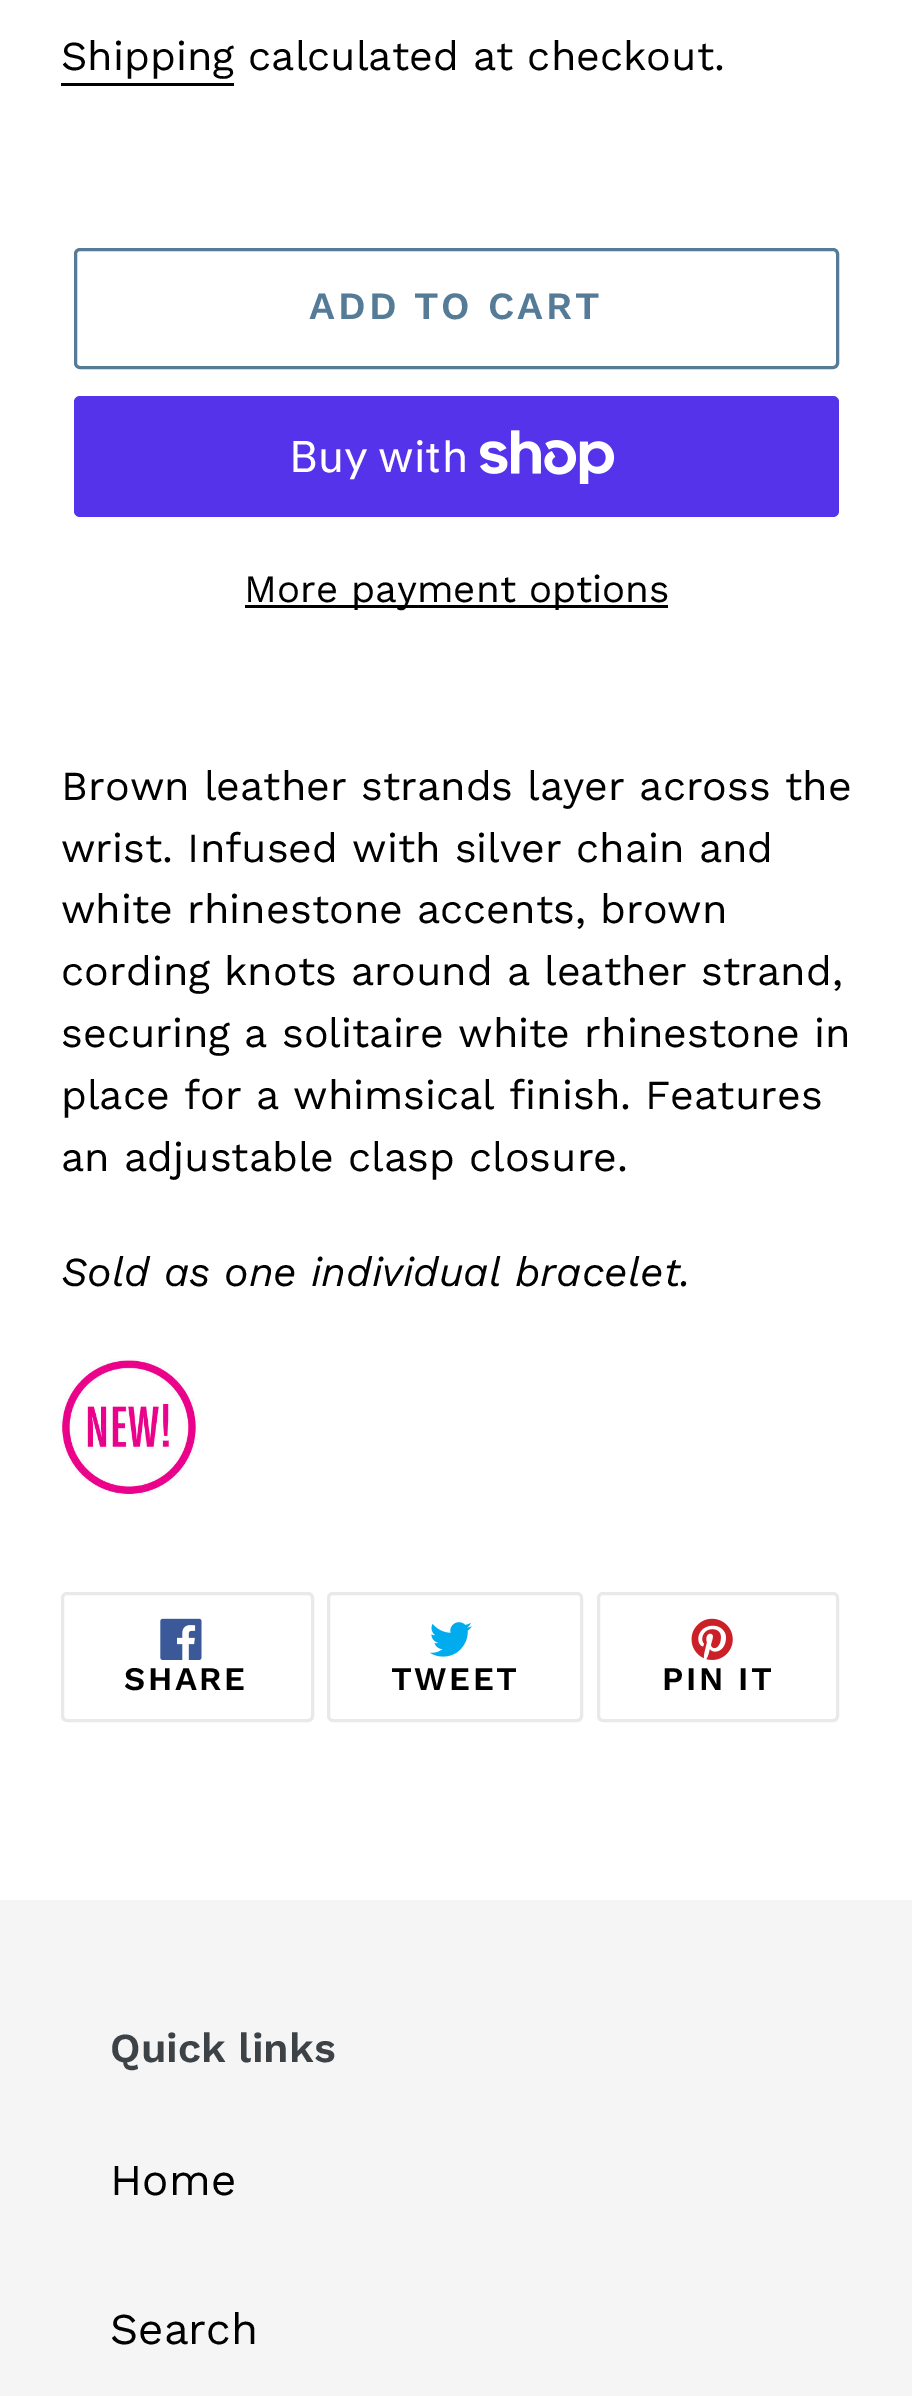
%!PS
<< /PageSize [912 2396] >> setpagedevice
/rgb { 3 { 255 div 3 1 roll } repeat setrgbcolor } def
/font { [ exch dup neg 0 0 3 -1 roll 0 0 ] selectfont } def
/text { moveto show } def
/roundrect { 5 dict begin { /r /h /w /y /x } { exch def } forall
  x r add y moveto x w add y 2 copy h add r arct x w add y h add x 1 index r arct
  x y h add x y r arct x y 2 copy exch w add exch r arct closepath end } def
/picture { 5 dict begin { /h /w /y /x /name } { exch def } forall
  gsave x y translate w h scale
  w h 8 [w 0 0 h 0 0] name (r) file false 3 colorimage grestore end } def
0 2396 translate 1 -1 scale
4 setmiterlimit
255 255 255 rgb
0 0 912 2396 rectfill
0 0 0 rgb
61 83 173 3 rectfill
85 123 151 rgb
3 setlinewidth
75.5 249.5 762 118 4.5 roundrect stroke
84 51 235 rgb
74 396 765 121 6 roundrect fill
(img_01.rgb) 480 430 135 54 picture
0 0 0 rgb
245 605 423 3 rectfill
(img_02.rgb) 60 1359 138 138 picture
232 233 235 rgb
62.5 1593.5 250 127 4.5 roundrect stroke
(img_03.rgb) 160 1618 42 42 picture
328.5 1593.5 253 127 4.5 roundrect stroke
(img_04.rgb) 430 1622 42 35 picture
598.5 1593.5 239 127 4.5 roundrect stroke
(img_05.rgb) 691 1618 42 42 picture
245 245 245 rgb
0 1900 912 496 rectfill
/WorkSans-Regular 41.25 font
0 0 0 rgb
(Shipping calculated at checkout.) 61 70 text
/WorkSans-SemiBold 38.5 font
85 123 151 rgb
309 319 moveto 3 0 (ADD TO CART) ashow
/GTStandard-Regular 44 font
255 255 255 rgb
(Buy with) 289 472 text
/WorkSans-Regular 38.5 font
0 0 0 rgb
(More payment options) 244 602 text
/WorkSans-Regular 41.25 font
(Brown leather strands layer across the) 61 800 text
(wrist. Infused with silver chain and) 61 862 text
(white rhinestone accents, brown) 61 923 text
(cording knots around a leather strand,) 61 985 text
(securing a solitaire white rhinestone in) 61 1047 text
(place for a whimsical finish. Features) 61 1109 text
(an adjustable clasp closure.) 61 1171 text
/WorkSans-Italic 41.25 font
(Sold as one individual bracelet.) 61 1286 text
/WorkSans-SemiBold 33 font
124 1690 moveto 2.5 0 (SHARE) ashow
391 1690 moveto 2.5 0 (TWEET) ashow
662 1690 moveto 2.5 0 (PIN IT) ashow
/WorkSans-SemiBold 41.25 font
61 66 70 rgb
(Quick links) 110 2062 text
/WorkSans-Regular 44 font
0 0 0 rgb
(Home) 110 2195 text
(Search) 110 2344 text
showpage
